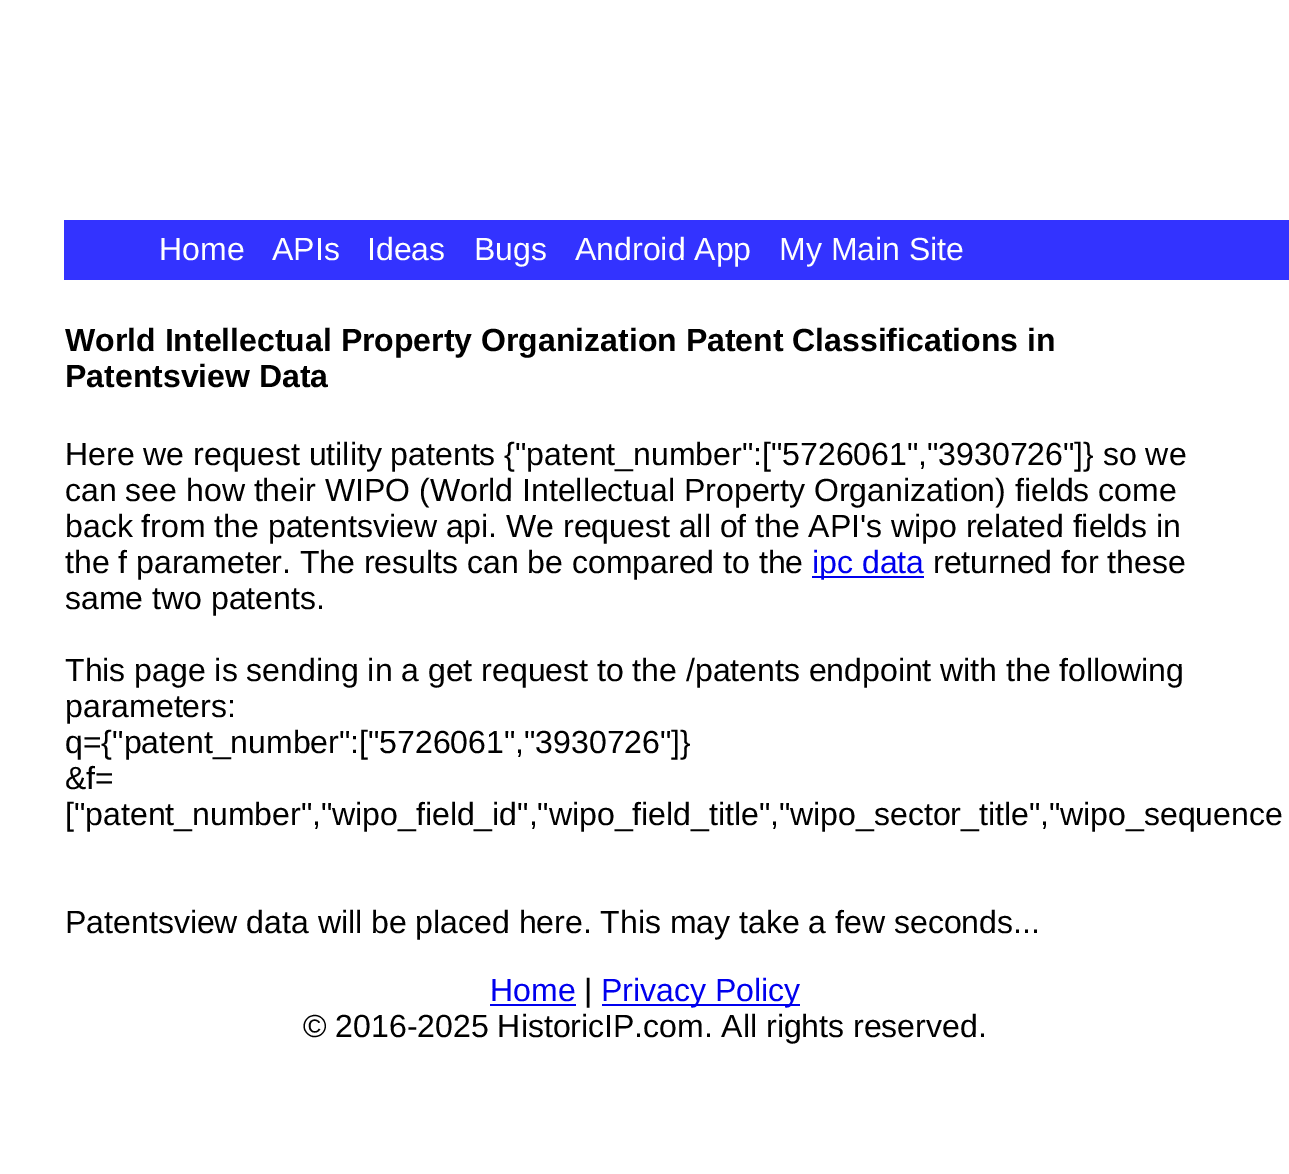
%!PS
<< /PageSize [1289 1174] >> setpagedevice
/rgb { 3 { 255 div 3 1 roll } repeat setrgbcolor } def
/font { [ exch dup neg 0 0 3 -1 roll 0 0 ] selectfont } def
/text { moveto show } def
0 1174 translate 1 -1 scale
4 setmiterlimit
255 255 255 rgb
0 0 1289 1174 rectfill
51 51 255 rgb
64 220 1225 60 rectfill
0 0 238 rgb
812 576 112 2 rectfill
490 1004 86 2 rectfill
602 1004 198 2 rectfill
/LiberationSans-Regular 32 font
255 255 255 rgb
(Home) 159 260 text
(APIs) 272 260 text
(Ideas) 367 260 text
(Bugs) 474 260 text
(Android App) 575 260 text
(My Main Site) 779 260 text
/LiberationSans-Bold 32 font
0 0 0 rgb
(World Intellectual Property Organization Patent Classifications in) 65 351 text
(Patentsview Data) 65 387 text
/LiberationSans-Regular 32 font
(Here we request utility patents {"patent_number":["5726061","3930726"]} so we) 65 465 text
(can see how their WIPO \(World Intellectual Property Organization\) fields come) 65 501 text
(back from the patentsview api. We request all of the API's wipo related fields in) 65 537 text
(the f parameter. The results can be compared to the) 65 573 text
0 0 238 rgb
(ipc data) 812 573 text
0 0 0 rgb
(returned for these) 933 573 text
(same two patents.) 65 609 text
(This page is sending in a get request to the /patents endpoint with the following) 65 681 text
(parameters:) 65 717 text
(q={"patent_number":["5726061","3930726"]}) 65 753 text
(&f=) 65 789 text
(["patent_number","wipo_field_id","wipo_field_title","wipo_sector_title","wipo_sequence) 65 825 text
(Patentsview data will be placed here. This may take a few seconds...) 65 933 text
0 0 238 rgb
(Home) 490 1001 text
0 0 0 rgb
(|) 584 1001 text
0 0 238 rgb
(Privacy Policy) 601 1001 text
0 0 0 rgb
(© 2016-2025 HistoricIP.com. All rights reserved.) 303 1037 text
showpage
